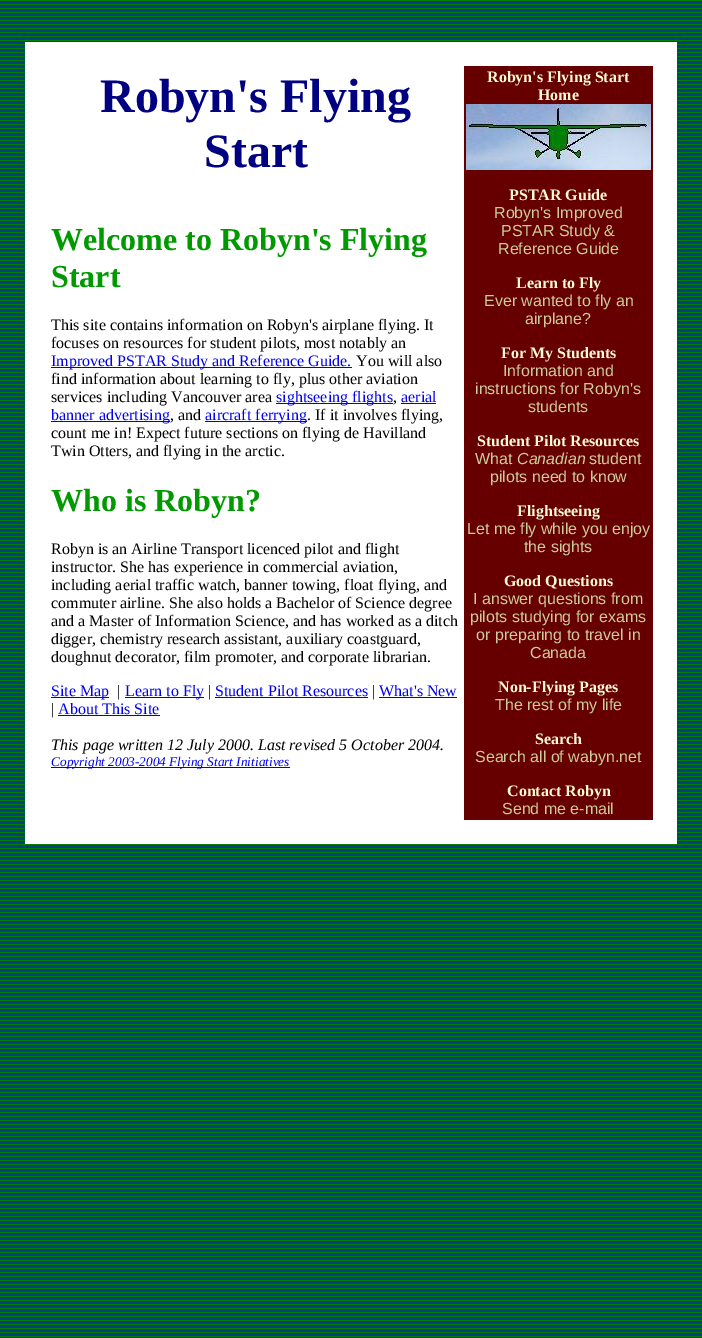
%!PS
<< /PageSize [702 1338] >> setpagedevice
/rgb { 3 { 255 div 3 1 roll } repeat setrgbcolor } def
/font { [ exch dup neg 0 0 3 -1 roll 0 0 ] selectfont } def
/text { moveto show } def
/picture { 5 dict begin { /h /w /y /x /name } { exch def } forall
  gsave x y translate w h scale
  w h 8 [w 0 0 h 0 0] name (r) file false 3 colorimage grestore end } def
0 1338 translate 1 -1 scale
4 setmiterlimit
255 255 255 rgb
0 0 702 1338 rectfill
(img_01.rgb) 0 0 702 1338 picture
25 42 652 802 rectfill
0 0 238 rgb
51 367 301 1 rectfill
276 403 117 1 rectfill
401 403 35 1 rectfill
51 421 119 1 rectfill
205 421 102 1 rectfill
51 697 58 1 rectfill
125 697 79 1 rectfill
215 697 153 1 rectfill
379 697 78 1 rectfill
58 715 102 1 rectfill
51 767 239 1 rectfill
102 0 0 rgb
464 66 189 754 rectfill
(img_02.rgb) 466 104 185 66 picture
/LiberationSerif-Bold 48 font
0 0 128 rgb
(Robyn's Flying) 100 112 text
(Start) 204 167 text
/LiberationSerif-Bold 32 font
0 153 0 rgb
(Welcome to Robyn's Flying) 51 250 text
(Start) 51 287 text
/LiberationSerif-Regular 16 font
0 0 0 rgb
(This site contains information on Robyn's airplane flying. It) 51 330 text
(focuses on resources for student pilots, most notably an) 51 348 text
0 0 238 rgb
(Improved PSTAR Study and Reference Guide.) 51 366 text
0 0 0 rgb
(You will also) 356 366 text
(find information about learning to fly, plus other aviation) 51 384 text
(services including Vancouver area) 51 402 text
0 0 238 rgb
(sightseeing flights) 276 402 text
0 0 0 rgb
(,) 393 402 text
0 0 238 rgb
(aerial) 401 402 text
(banner advertising) 51 420 text
0 0 0 rgb
(, and) 170 420 text
0 0 238 rgb
(aircraft ferrying) 205 420 text
0 0 0 rgb
(. If it involves flying,) 307 420 text
(count me in! Expect future sections on flying de Havilland) 51 438 text
(Twin Otters, and flying in the arctic.) 51 456 text
/LiberationSerif-Bold 32 font
0 153 0 rgb
(Who is Robyn?) 51 511 text
/LiberationSerif-Regular 16 font
0 0 0 rgb
(Robyn is an Airline Transport licenced pilot and flight) 51 554 text
(instructor. She has experience in commercial aviation,) 51 572 text
(including aerial traffic watch, banner towing, float flying, and) 51 590 text
(commuter airline. She also holds a Bachelor of Science degree) 51 608 text
(and a Master of Information Science, and has worked as a ditch) 51 626 text
(digger, chemistry research assistant, auxiliary coastguard,) 51 644 text
(doughnut decorator, film promoter, and corporate librarian.) 51 662 text
0 0 238 rgb
(Site Map) 51 696 text
0 0 0 rgb
(|) 117 696 text
0 0 238 rgb
(Learn to Fly) 125 696 text
0 0 0 rgb
(|) 208 696 text
0 0 238 rgb
(Student Pilot Resources) 215 696 text
0 0 0 rgb
(|) 372 696 text
0 0 238 rgb
(What's New) 379 696 text
0 0 0 rgb
(|) 51 714 text
0 0 238 rgb
(About This Site) 58 714 text
/LiberationSerif-Italic 16 font
0 0 0 rgb
(This page written 12 July 2000. Last revised 5 October 2004.) 51 750 text
/LiberationSerif-Italic 13.3 font
0 0 238 rgb
(Copyright 2003-2004 Flying Start Initiatives) 51 766 text
/LiberationSerif-Bold 16 font
250 250 210 rgb
(Robyn's Flying Start) 487 82 text
(Home) 538 100 text
(PSTAR Guide) 509 200 text
/LiberationSans-Regular 16 font
204 204 153 rgb
(Robyn's Improved) 494 218 text
(PSTAR Study &) 501 236 text
(Reference Guide) 498 254 text
/LiberationSerif-Bold 16 font
250 250 210 rgb
(Learn to Fly) 516 288 text
/LiberationSans-Regular 16 font
204 204 153 rgb
(Ever wanted to fly an) 484 306 text
(airplane?) 525 324 text
/LiberationSerif-Bold 16 font
250 250 210 rgb
(For My Students) 501 358 text
/LiberationSans-Regular 16 font
204 204 153 rgb
(Information and) 503 376 text
(instructions for Robyn's) 475 394 text
(students) 528 412 text
/LiberationSerif-Bold 16 font
250 250 210 rgb
(Student Pilot Resources) 477 446 text
/LiberationSans-Regular 16 font
204 204 153 rgb
(What) 475 464 text
/LiberationSans-Italic 16 font
(Canadian) 517 464 text
/LiberationSans-Regular 16 font
(student) 589 464 text
(pilots need to know) 490 482 text
/LiberationSerif-Bold 16 font
250 250 210 rgb
(Flightseeing) 517 516 text
/LiberationSans-Regular 16 font
204 204 153 rgb
(Let me fly while you enjoy) 467 534 text
(the sights) 524 552 text
/LiberationSerif-Bold 16 font
250 250 210 rgb
(Good Questions) 504 586 text
/LiberationSans-Regular 16 font
204 204 153 rgb
(I answer questions from) 473 604 text
(pilots studying for exams) 470 622 text
(or preparing to travel in) 476 640 text
(Canada) 530 658 text
/LiberationSerif-Bold 16 font
250 250 210 rgb
(Non-Flying Pages) 498 692 text
/LiberationSans-Regular 16 font
204 204 153 rgb
(The rest of my life) 495 710 text
/LiberationSerif-Bold 16 font
250 250 210 rgb
(Search) 535 744 text
/LiberationSans-Regular 16 font
204 204 153 rgb
(Search all of wabyn.net) 475 762 text
/LiberationSerif-Bold 16 font
250 250 210 rgb
(Contact Robyn) 507 796 text
/LiberationSans-Regular 16 font
204 204 153 rgb
(Send me e-mail) 502 814 text
showpage
